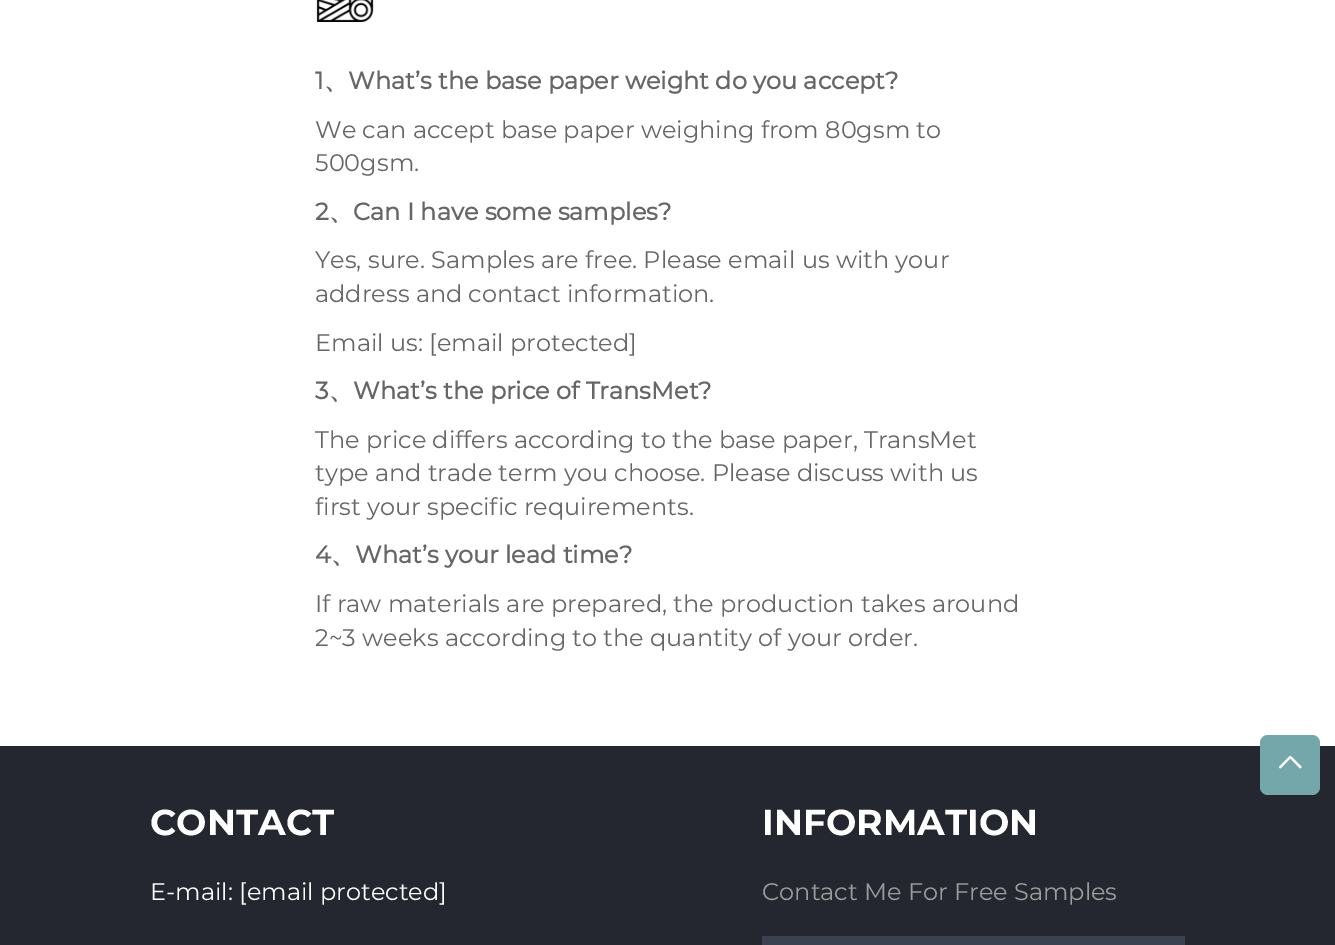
%!PS
<< /PageSize [1335 945] >> setpagedevice
/rgb { 3 { 255 div 3 1 roll } repeat setrgbcolor } def
/font { [ exch dup neg 0 0 3 -1 roll 0 0 ] selectfont } def
/text { moveto show } def
/roundrect { 5 dict begin { /r /h /w /y /x } { exch def } forall
  x r add y moveto x w add y 2 copy h add r arct x w add y h add x 1 index r arct
  x y h add x y r arct x y 2 copy exch w add exch r arct closepath end } def
/picture { 5 dict begin { /h /w /y /x /name } { exch def } forall
  gsave x y translate w h scale
  w h 8 [w 0 0 h 0 0] name (r) file false 3 colorimage grestore end } def
0 945 translate 1 -1 scale
4 setmiterlimit
255 255 255 rgb
0 0 1335 945 rectfill
(img_01.rgb) 316 0 58 22 picture
36 39 47 rgb
0 746 1335 199 rectfill
115 167 169 rgb
1260 735 60 60 8 roundrect fill
(img_02.rgb) 1279 755 23 14 picture
59 65 79 rgb
762 936 423 9 rectfill
/Montserrat-Bold 24 font
102 102 102 rgb
(1) 315 89 text
(What’s the base paper weight do you accept?) 348 89 text
/WenQuanYiZenHei-Bold 24 font
(、) 324 89 text
/Montserrat-Regular 24 font
(We can accept base paper weighing from 80gsm to) 315 138 text
(500gsm.) 315 171 text
/Montserrat-Bold 24 font
(2) 315 220 text
(Can I have some samples?) 353 220 text
/WenQuanYiZenHei-Bold 24 font
(、) 329 220 text
/Montserrat-Regular 24 font
(Yes, sure. Samples are free. Please email us with your) 315 268 text
(address and contact information.) 315 302 text
(Email us: [email protected]) 315 351 text
/Montserrat-Bold 24 font
(3) 315 399 text
/WenQuanYiZenHei-Bold 24 font
(、) 329 399 text
/Montserrat-Bold 24 font
(What’s the price of TransMet?) 353 399 text
/Montserrat-Regular 24 font
(The price differs according to the base paper, TransMet) 315 448 text
(type and trade term you choose. Please discuss with us) 315 481 text
(first your specific requirements.) 315 515 text
/Montserrat-Bold 24 font
(4) 315 563 text
(What’s your lead time?) 355 563 text
/WenQuanYiZenHei-Bold 24 font
(、) 331 563 text
/Montserrat-Regular 24 font
(If raw materials are prepared, the production takes around) 315 612 text
(2~3 weeks according to the quantity of your order.) 315 646 text
/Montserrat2-Bold 36 font
255 255 255 rgb
(CONTACT) 150 835 text
/Montserrat-Regular 24 font
(E-mail: [email protected]) 150 900 text
/Montserrat2-Bold 36 font
(INFORMATION) 762 835 text
/Montserrat-Regular 24 font
157 157 157 rgb
(Contact Me For Free Samples) 762 900 text
showpage
